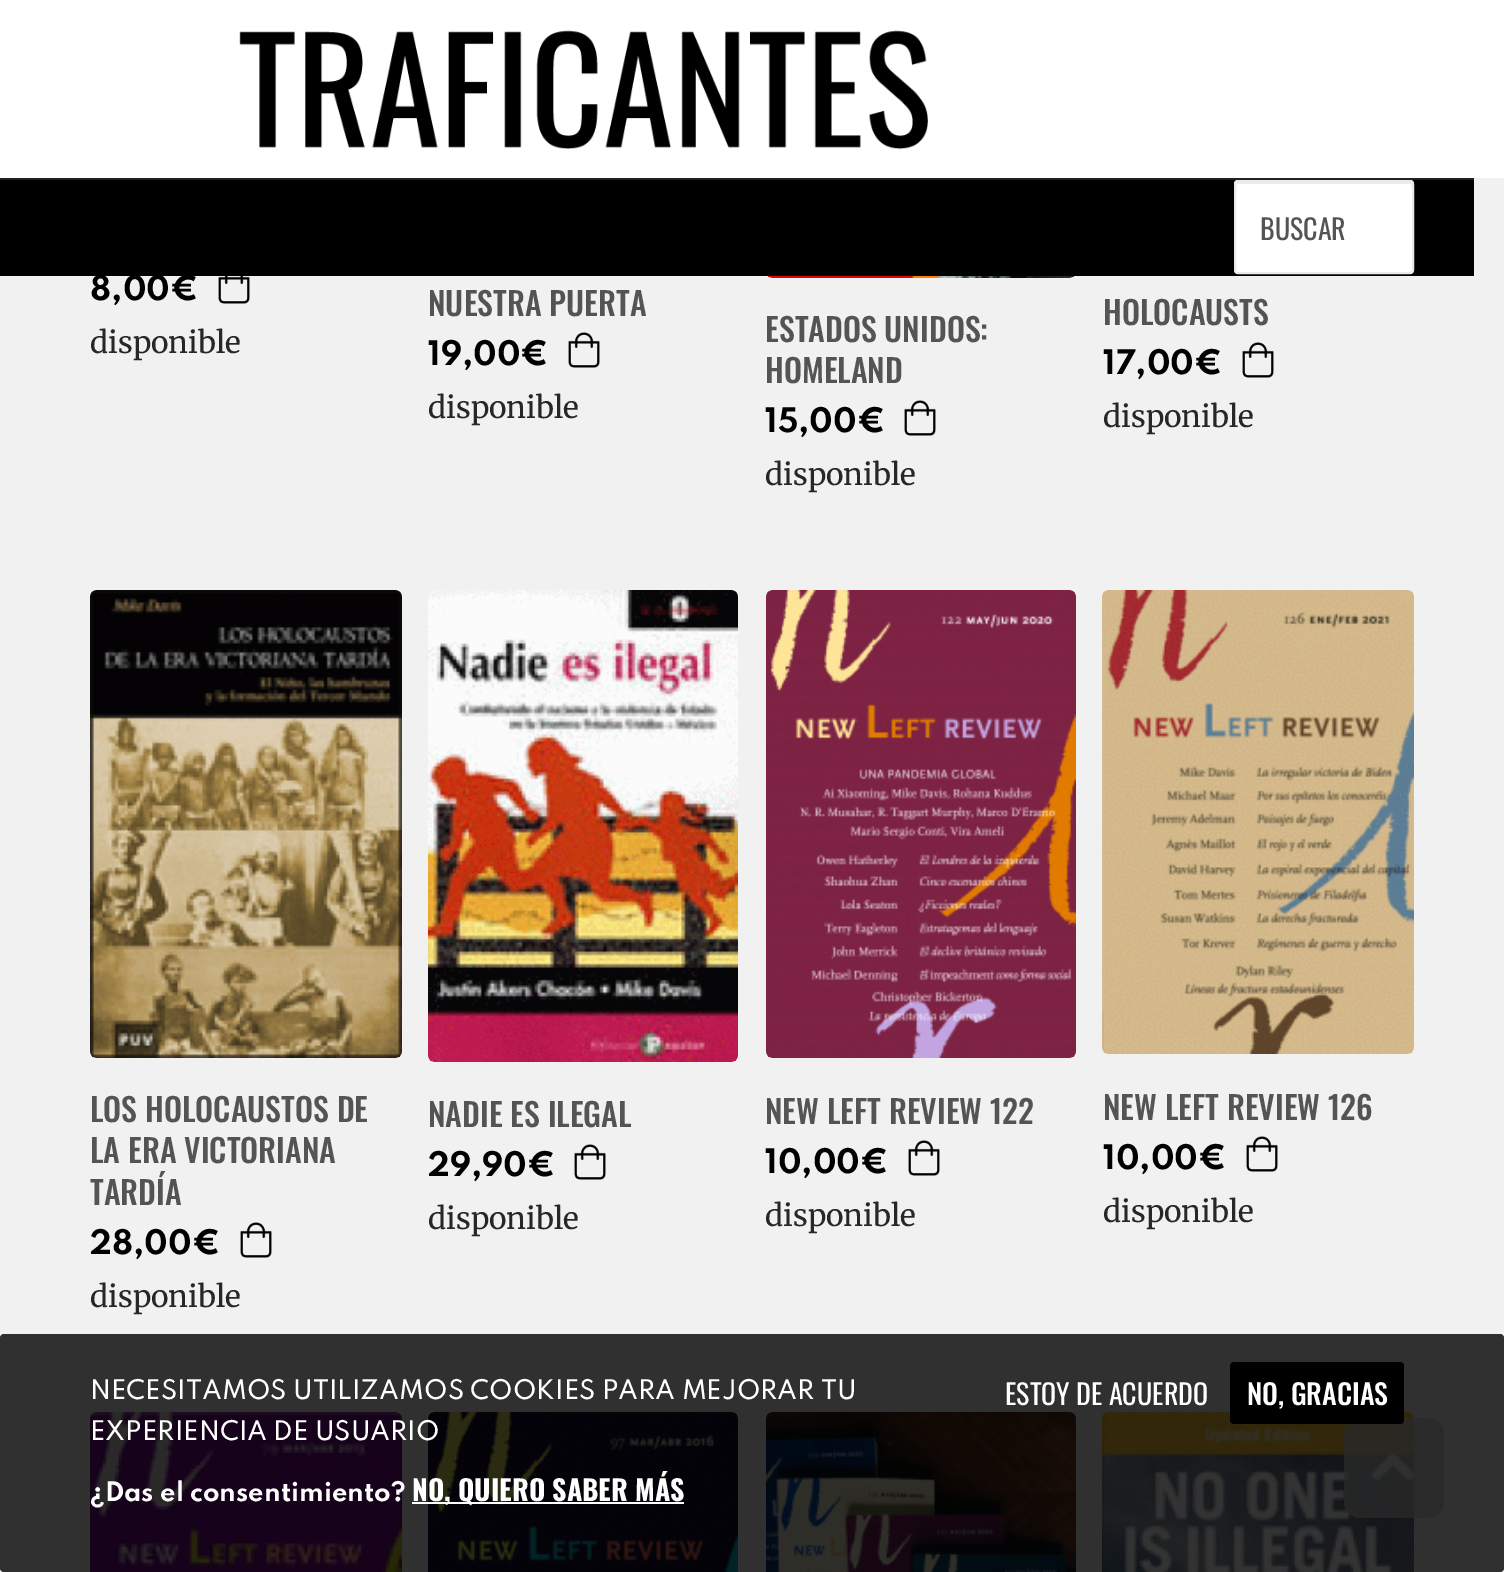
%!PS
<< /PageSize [1504 1572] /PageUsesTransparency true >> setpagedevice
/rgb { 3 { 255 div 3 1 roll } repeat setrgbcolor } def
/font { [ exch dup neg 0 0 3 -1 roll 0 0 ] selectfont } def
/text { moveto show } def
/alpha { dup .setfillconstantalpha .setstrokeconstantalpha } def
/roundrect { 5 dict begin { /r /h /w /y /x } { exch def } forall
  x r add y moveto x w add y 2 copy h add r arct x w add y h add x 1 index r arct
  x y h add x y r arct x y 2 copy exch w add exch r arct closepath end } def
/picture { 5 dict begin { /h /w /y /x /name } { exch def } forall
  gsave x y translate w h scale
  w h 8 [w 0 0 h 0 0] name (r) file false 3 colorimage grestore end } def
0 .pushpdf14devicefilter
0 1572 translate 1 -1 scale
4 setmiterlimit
241 241 241 rgb
0 0 1504 1572 rectfill
255 255 255 rgb
0 0 1504 178 rectfill
(img_01.rgb) 239 30 689 120 picture
34 34 34 rgb
0 178 1474 2 rectfill
0 0 0 rgb
0 180 1474 96 rectfill
255 255 255 rgb
1234 180 180 94 4 roundrect fill
236 236 236 rgb
1238 184 moveto 172 0 rlineto 1 0 2 1 2 2 rcurveto 0 -1 0 -4 -2 -4 rcurveto -172 0 rlineto -2 0 -2 3 -2 4 rcurveto 0 -1 1 -2 2 -2 rcurveto closepath fill
234 234 234 rgb
2 setlinewidth
1235 181 178 92 3 roundrect stroke
(img_02.rgb) 218 276 32 28 picture
(img_03.rgb) 568 332 32 36 picture
(img_04.rgb) 767 276 307 2 picture
(img_03.rgb) 904 400 32 36 picture
(img_03.rgb) 1242 342 32 36 picture
(img_05.rgb) 90 590 312 468 picture
(img_03.rgb) 240 1222 32 36 picture
(img_06.rgb) 428 590 310 472 picture
(img_07.rgb) 574 1144 32 36 picture
(img_08.rgb) 766 590 310 468 picture
(img_03.rgb) 908 1140 32 36 picture
(img_09.rgb) 1102 590 312 464 picture
(img_03.rgb) 1246 1136 32 36 picture
(img_10.rgb) 90 1412 312 160 picture
(img_11.rgb) 428 1412 310 160 picture
(img_12.rgb) 766 1412 310 160 picture
(img_13.rgb) 1102 1412 312 160 picture
0.8 alpha
204 204 204 rgb
1344 1418 100 100 16 roundrect fill
1 alpha
(img_14.rgb) 1372 1454 42 26 picture
0.8 alpha
0 0 0 rgb
0 1334 1504 238 4 roundrect fill
1 alpha
255 255 255 rgb
412 1502 272 2 rectfill
0 0 0 rgb
1230 1362 174 62 4 roundrect fill
/Oswald-Regular 28 font
84 84 84 rgb
(BUSCAR) 1260 240 text
/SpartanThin-Bold 30 font
0 0 0 rgb
(8,00€) 90 300 text
/Merriweather-Regular 30 font
39 39 39 rgb
(disponible) 90 353 text
/Oswald-Medium 32 font
84 84 84 rgb
(NUESTRA PUERTA) 428 316 text
/SpartanThin-Bold 30 font
0 0 0 rgb
(19,00€) 428 365 text
/Merriweather-Regular 30 font
39 39 39 rgb
(disponible) 428 418 text
/Oswald-Medium 32 font
84 84 84 rgb
(ESTADOS UNIDOS:) 765 342 text
(HOMELAND) 765 383 text
/SpartanThin-Bold 30 font
0 0 0 rgb
(15,00€) 765 432 text
/Merriweather-Regular 30 font
39 39 39 rgb
(disponible) 765 485 text
/Oswald-Medium 32 font
84 84 84 rgb
(HOLOCAUSTS) 1103 325 text
/SpartanThin-Bold 30 font
0 0 0 rgb
(17,00€) 1103 374 text
/Merriweather-Regular 30 font
39 39 39 rgb
(disponible) 1103 427 text
/Oswald-Medium 32 font
84 84 84 rgb
(LOS HOLOCAUSTOS DE) 90 1122 text
(LA ERA VICTORIANA) 90 1163 text
(TARDÍA) 90 1205 text
/SpartanThin-Bold 30 font
0 0 0 rgb
(28,00€) 90 1254 text
/Merriweather-Regular 30 font
39 39 39 rgb
(disponible) 90 1307 text
/Oswald-Medium 32 font
84 84 84 rgb
(NADIE ES ILEGAL) 428 1127 text
/SpartanThin-Bold 30 font
0 0 0 rgb
(29,90€) 428 1176 text
/Merriweather-Regular 30 font
39 39 39 rgb
(disponible) 428 1229 text
/Oswald-Medium 32 font
84 84 84 rgb
(NEW LEFT REVIEW 122) 765 1124 text
/SpartanThin-Bold 30 font
0 0 0 rgb
(10,00€) 765 1173 text
/Merriweather-Regular 30 font
39 39 39 rgb
(disponible) 765 1226 text
/Oswald-Medium 32 font
84 84 84 rgb
(NEW LEFT REVIEW 126) 1103 1120 text
/SpartanThin-Bold 30 font
0 0 0 rgb
(10,00€) 1103 1169 text
/Merriweather-Regular 30 font
39 39 39 rgb
(disponible) 1103 1222 text
/SpartanThin-Medium 24 font
255 255 255 rgb
(NECESITAMOS UTILIZAMOS COOKIES PARA MEJORAR TU) 90 1399 text
(EXPERIENCIA DE USUARIO) 90 1440 text
/SpartanThin-Bold 24 font
(¿Das el consentimiento?) 90 1501 text
/Oswald-Bold 28 font
(NO, QUIERO SABER MÁS) 412 1501 text
/Oswald-Regular 28 font
(ESTOY DE ACUERDO) 1005 1405 text
/Oswald-Medium 28 font
(NO, GRACIAS) 1247 1405 text
.poppdf14devicefilter showpage
